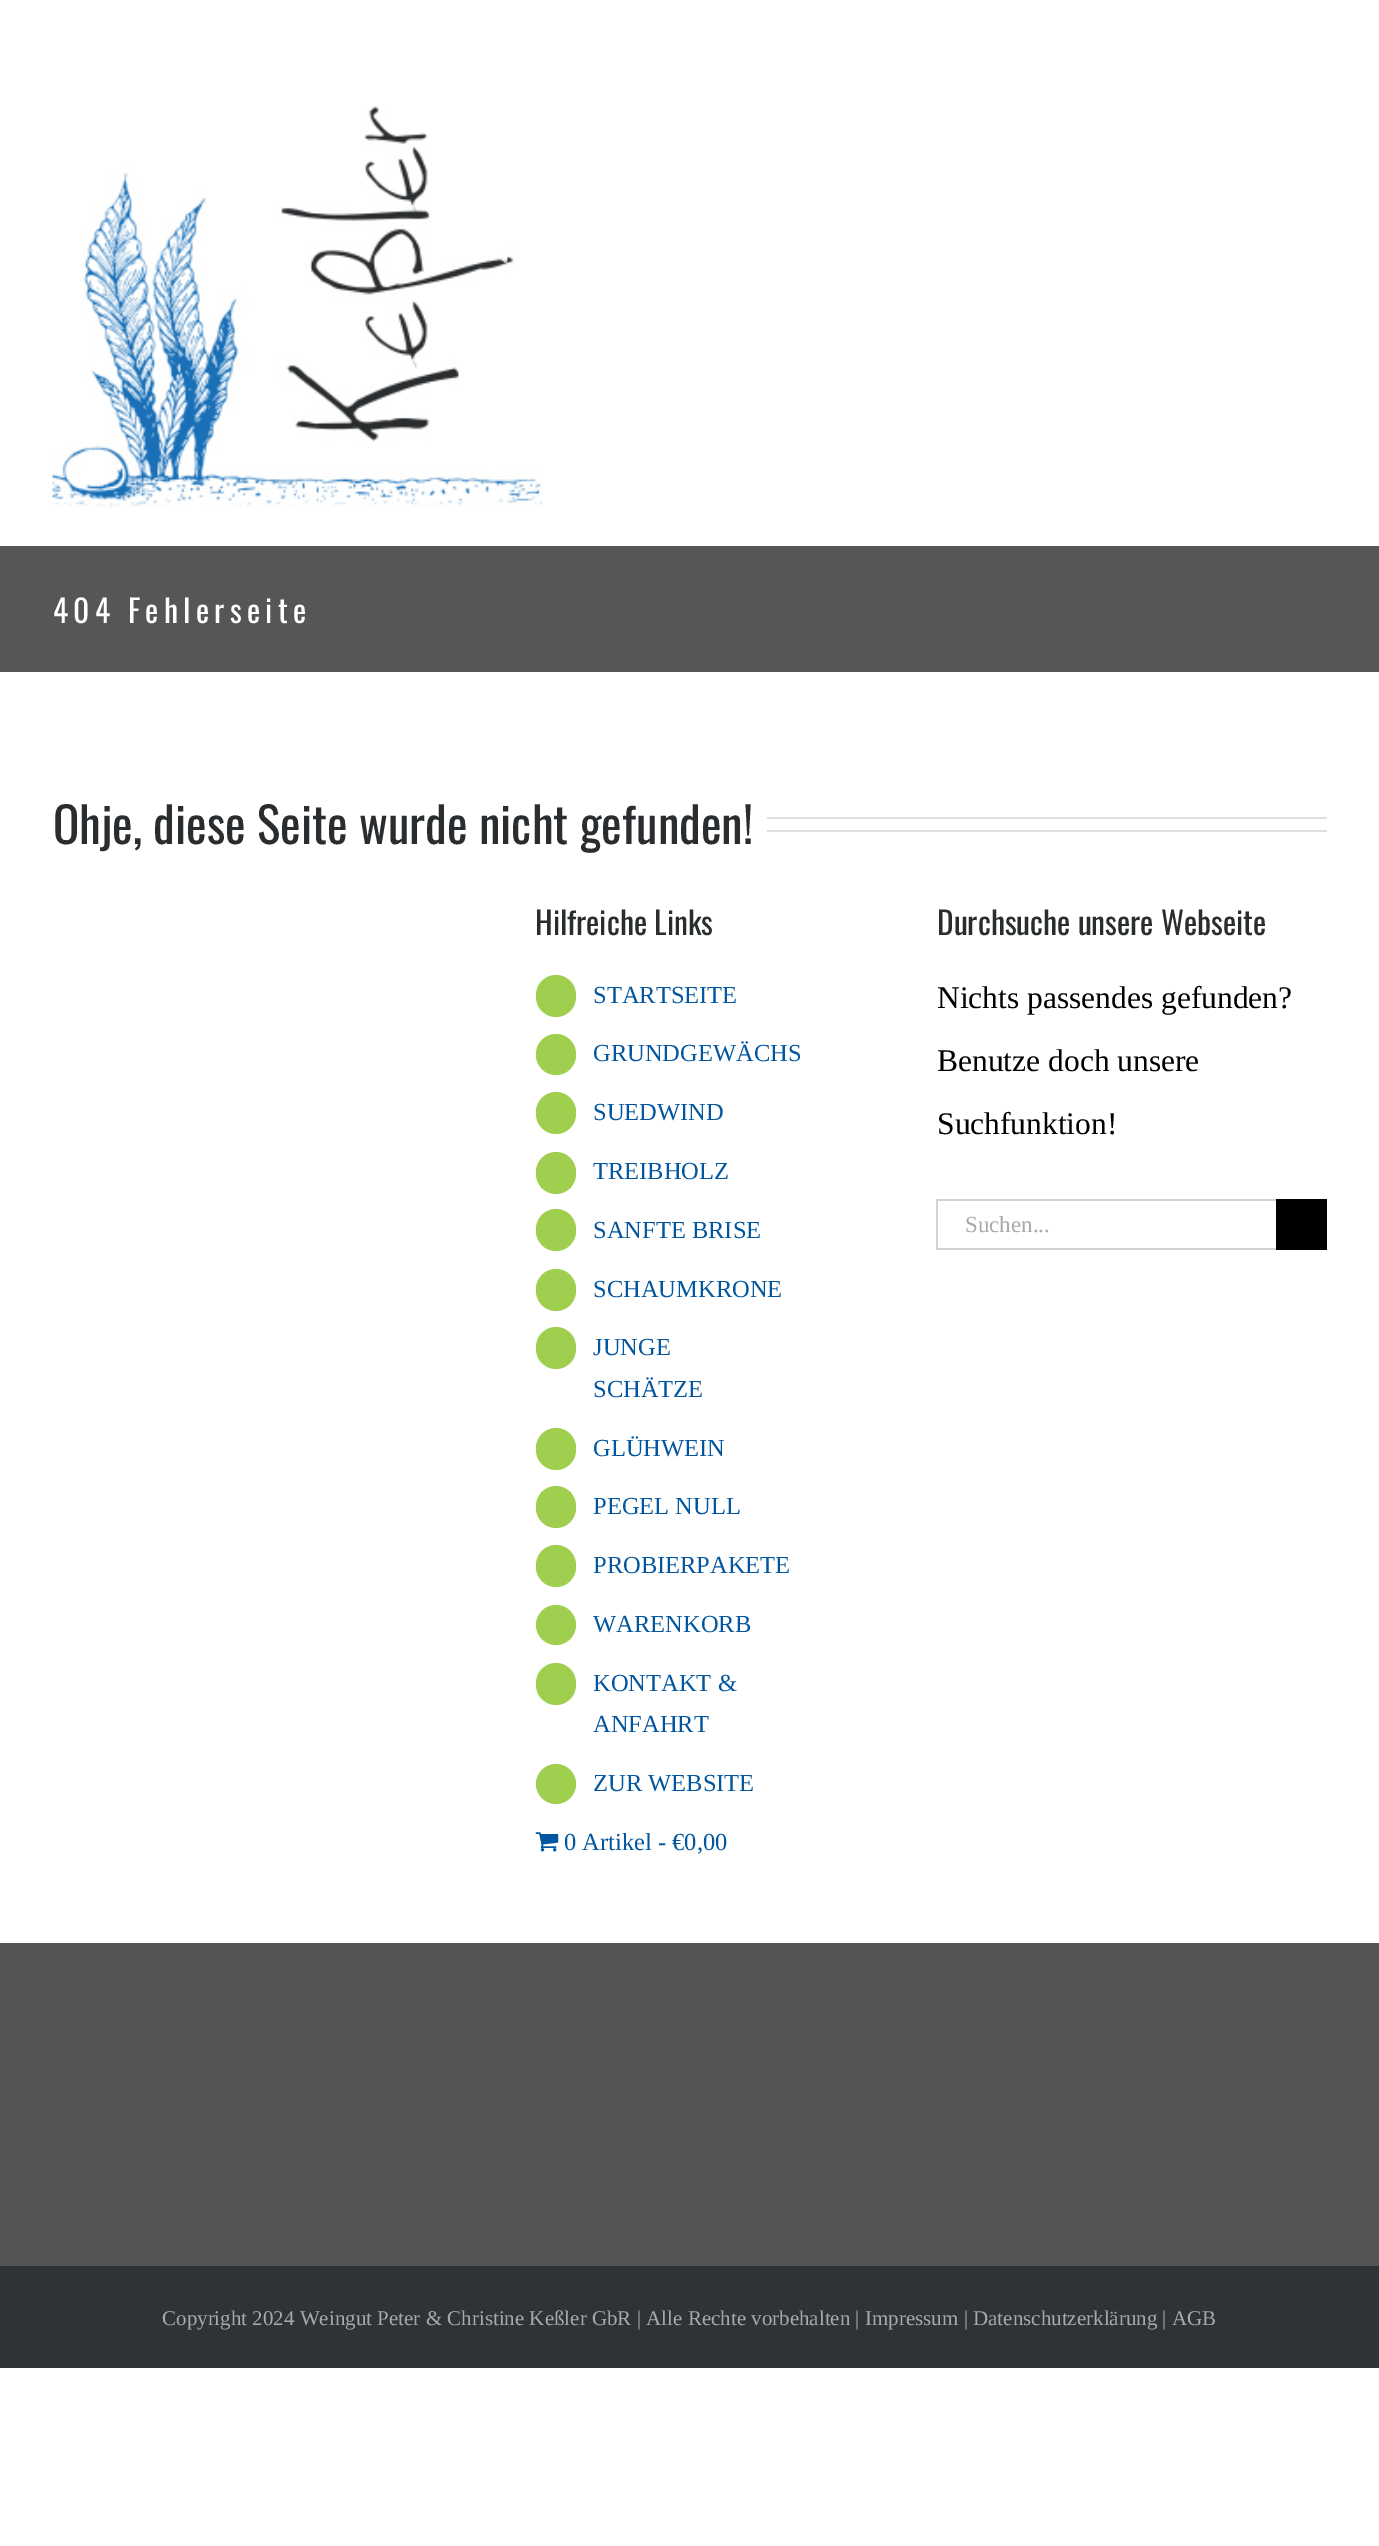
%!PS
<< /PageSize [1379 2546] >> setpagedevice
/rgb { 3 { 255 div 3 1 roll } repeat setrgbcolor } def
/font { [ exch dup neg 0 0 3 -1 roll 0 0 ] selectfont } def
/text { moveto show } def
/circle { newpath 0 360 arc closepath } def
/roundrect { 5 dict begin { /r /h /w /y /x } { exch def } forall
  x r add y moveto x w add y 2 copy h add r arct x w add y h add x 1 index r arct
  x y h add x y r arct x y 2 copy exch w add exch r arct closepath end } def
/picture { 5 dict begin { /h /w /y /x /name } { exch def } forall
  gsave x y translate w h scale
  w h 8 [w 0 0 h 0 0] name (r) file false 3 colorimage grestore end } def
0 2546 translate 1 -1 scale
4 setmiterlimit
255 255 255 rgb
0 0 1379 2546 rectfill
(img_01.rgb) 52 106 491 403 picture
86 86 86 rgb
0 546 1379 126 rectfill
224 222 222 rgb
767 817 560 2 rectfill
767 830 560 2 rectfill
160 206 78 rgb
536 975 40 42 20 roundrect fill
536 1034 40 41 20 roundrect fill
536 1092 40 42 20 roundrect fill
536 1152 40 42 20 roundrect fill
536 1209 40 42 20 roundrect fill
536 1269 40 42 20 roundrect fill
536 1327 40 42 20 roundrect fill
536 1428 40 42 20 roundrect fill
536 1486 40 42 20 roundrect fill
536 1545 40 42 20 roundrect fill
556 1625 20 circle fill
536 1663 40 42 20 roundrect fill
556 1784 20 circle fill
(img_02.rgb) 535 1832 24 20 picture
210 210 210 rgb
936 1199 340 2 rectfill
936 1248 340 2 rectfill
936 1199 2 51 rectfill
0 0 0 rgb
1276 1199 51 51 rectfill
85 85 85 rgb
0 1943 1379 323 rectfill
47 51 55 rgb
0 2266 1379 102 rectfill
/Oswald-Regular 31.5 font
255 255 255 rgb
53 623 moveto 5.25 0 (404 Fehlerseite) ashow
/Oswald-Regular 49 font
42 45 47 rgb
(Ohje, diese Seite wurde nicht gefunden!) 53 844 text
/Oswald-Regular 31.5 font
(Hilfreiche Links) 535 935 text
/LiberationSerif-Regular 24.5 font
2 86 159 rgb
(STARTSEITE) 593 1003 text
(GRUNDGEWÄCHS) 593 1061 text
(SUEDWIND) 593 1120 text
(TREIBHOLZ) 593 1179 text
(SANFTE BRISE) 593 1238 text
(SCHAUMKRONE) 593 1297 text
(JUNGE) 593 1355 text
(SCHÄTZE) 593 1397 text
(GLÜHWEIN) 593 1456 text
(PEGEL NULL) 593 1514 text
(PROBIERPAKETE) 593 1573 text
(WARENKORB) 593 1632 text
(KONTAKT &) 593 1691 text
(ANFAHRT) 593 1732 text
(ZUR WEBSITE) 593 1791 text
(0 Artikel - €0,00) 564 1850 text
/Oswald-Regular 31.5 font
42 45 47 rgb
(Durchsuche unsere Webseite) 937 935 text
/LiberationSerif-Regular 31.5 font
0 0 0 rgb
(Nichts passendes gefunden?) 937 1008 text
(Benutze doch unsere) 937 1071 text
(Suchfunktion!) 937 1134 text
/LiberationSerif-Regular 23 font
170 169 169 rgb
(Suchen...) 965 1232 text
/LiberationSerif-Regular 21 font
(Copyright 2024 Weingut Peter & Christine Keßler GbR | Alle Rechte vorbehalten | Impressum | Datenschutzerklärung | AGB) 162 2325 text
showpage
